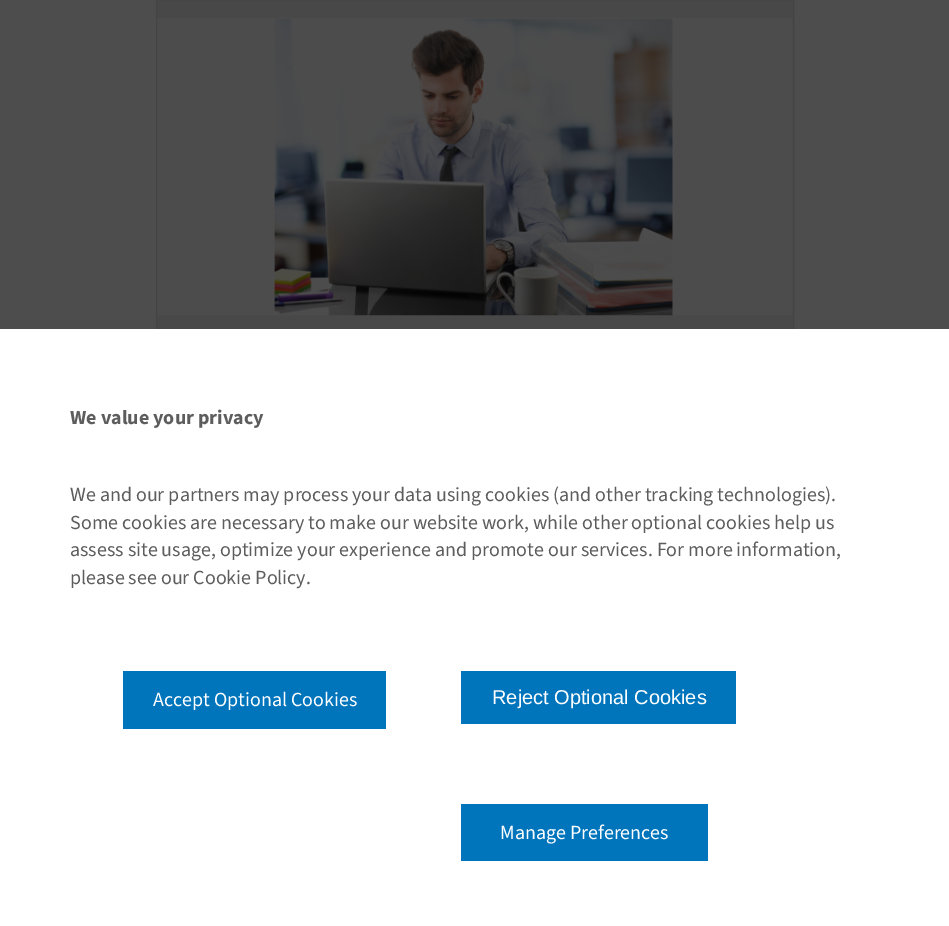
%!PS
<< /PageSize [949 926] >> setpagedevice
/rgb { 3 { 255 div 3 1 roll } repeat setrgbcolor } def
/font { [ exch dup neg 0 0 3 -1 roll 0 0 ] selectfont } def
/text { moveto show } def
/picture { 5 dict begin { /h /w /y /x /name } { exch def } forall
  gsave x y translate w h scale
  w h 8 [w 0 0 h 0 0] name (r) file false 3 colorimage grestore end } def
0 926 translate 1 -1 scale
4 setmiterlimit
77 77 77 rgb
0 0 949 926 rectfill
72 72 72 rgb
157 0 636 329 rectfill
68 68 68 rgb
156.5 -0.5 637 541 rectstroke
(img_01.rgb) 157 18 636 298 picture
255 255 255 rgb
0 329 949 597 rectfill
0 117 188 rgb
123 671 263 58 rectfill
461 671 275 53 rectfill
461 804 247 57 rectfill
/SourceSans3-Bold 20 font
93 93 93 rgb
(We value your privacy) 70 424 text
/SourceSans3-Regular 20 font
(We and our partners may process your data using cookies \(and other tracking technologies\).) 70 501 text
(Some cookies are necessary to make our website work, while other optional cookies help us) 70 529 text
(assess site usage, optimize your experience and promote our services. For more information,) 70 556 text
(please see our Cookie Policy.) 70 584 text
255 255 255 rgb
(Accept Optional Cookies) 153 706 text
/LiberationSans-Regular 20 font
(Reject Optional Cookies) 492 704 text
/SourceSans3-Regular 20 font
(Manage Preferences) 500 839 text
showpage
